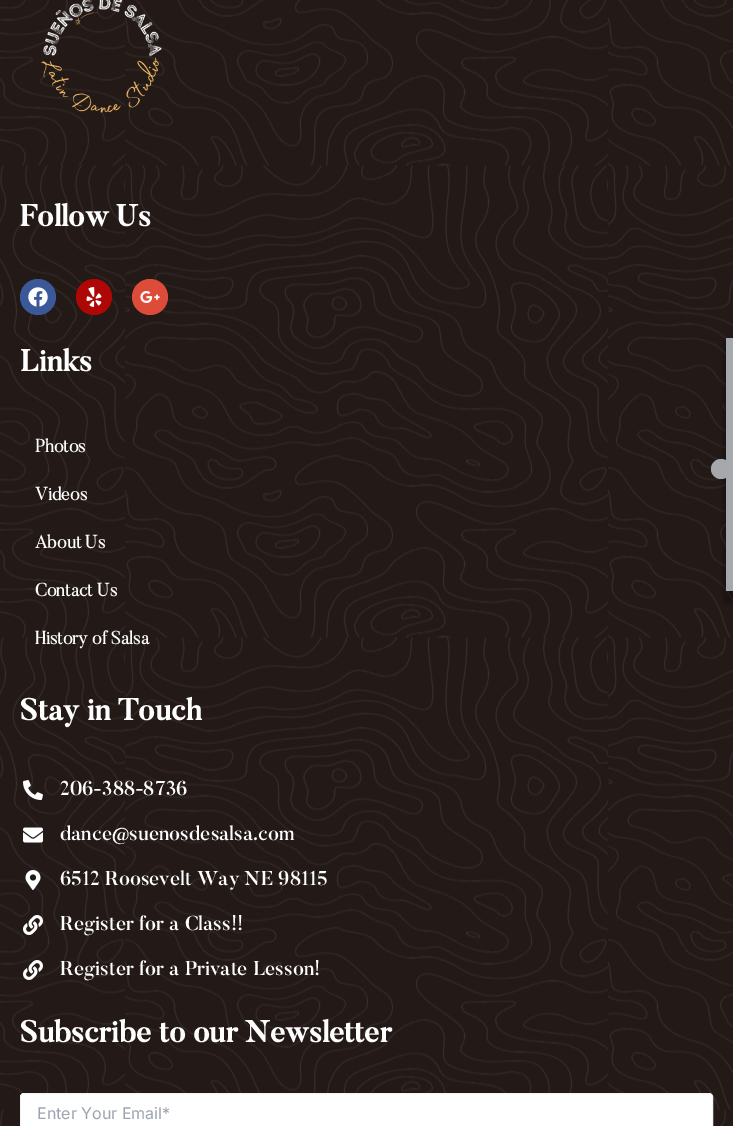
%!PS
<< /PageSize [733 1126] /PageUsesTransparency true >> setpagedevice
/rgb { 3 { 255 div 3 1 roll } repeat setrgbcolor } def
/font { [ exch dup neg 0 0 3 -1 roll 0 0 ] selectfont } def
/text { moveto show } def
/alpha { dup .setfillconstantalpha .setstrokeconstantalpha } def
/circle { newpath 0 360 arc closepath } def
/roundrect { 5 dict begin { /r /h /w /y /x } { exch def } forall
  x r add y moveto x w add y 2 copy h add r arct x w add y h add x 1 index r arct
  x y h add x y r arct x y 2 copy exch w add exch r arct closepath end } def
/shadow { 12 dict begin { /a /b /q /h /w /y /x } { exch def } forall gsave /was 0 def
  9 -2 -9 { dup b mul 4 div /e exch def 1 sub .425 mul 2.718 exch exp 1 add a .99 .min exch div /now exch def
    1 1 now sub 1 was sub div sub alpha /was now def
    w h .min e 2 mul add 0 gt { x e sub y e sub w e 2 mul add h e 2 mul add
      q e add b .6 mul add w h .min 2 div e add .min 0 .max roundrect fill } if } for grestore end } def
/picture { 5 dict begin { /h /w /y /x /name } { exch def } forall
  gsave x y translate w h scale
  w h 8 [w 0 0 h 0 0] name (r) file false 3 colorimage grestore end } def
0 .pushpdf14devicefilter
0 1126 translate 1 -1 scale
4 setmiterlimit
35 25 23 rgb
0 0 733 1126 rectfill
(img_01.rgb) 0 0 733 1126 picture
(img_02.rgb) 41 0 121 113 picture
59 89 152 rgb
38 297 18 circle fill
(img_03.rgb) 28 287 20 20 picture
175 6 6 rgb
94 297 18 circle fill
(img_04.rgb) 86 287 16 20 picture
221 75 57 rgb
150 297 18 circle fill
(img_05.rgb) 140 291 20 12 picture
(img_06.rgb) 23 780 20 20 picture
(img_07.rgb) 23 827 20 16 picture
(img_08.rgb) 25 870 16 20 picture
(img_09.rgb) 23 915 20 20 picture
(img_10.rgb) 23 960 20 20 picture
255 255 255 rgb
20.5 1093.5 692 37 3.5 roundrect gsave fill grestore
242 245 247 rgb
stroke
0 0 0 rgb
724 340 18 263 0 3 0.31 shadow
165 169 172 rgb
726 338 7 253 rectfill
721 469 10 circle fill
/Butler-Bold 30 font
255 255 255 rgb
(Follow Us) 20 226 text
(Links) 20 371 text
/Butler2-Bold 18 font
(Photos) 35 452 text
(Videos) 35 500 text
(About Us) 35 548 text
(Contact Us) 35 596 text
(History of Salsa) 35 644 text
/Butler-Bold 30 font
(Stay in Touch) 20 720 text
/Butler-Medium 20 font
(206-388-8736) 60 795 text
(dance@suenosdesalsa.com) 60 840 text
(6512 Roosevelt Way NE 98115) 60 885 text
(Register for a Class!!) 60 930 text
(Register for a Private Lesson!) 60 975 text
/Butler-Bold 30 font
(Subscribe to our Newsletter) 20 1042 text
/Inter-Regular 16 font
156 163 175 rgb
(Enter Your Email*) 37 1119 text
.poppdf14devicefilter showpage
